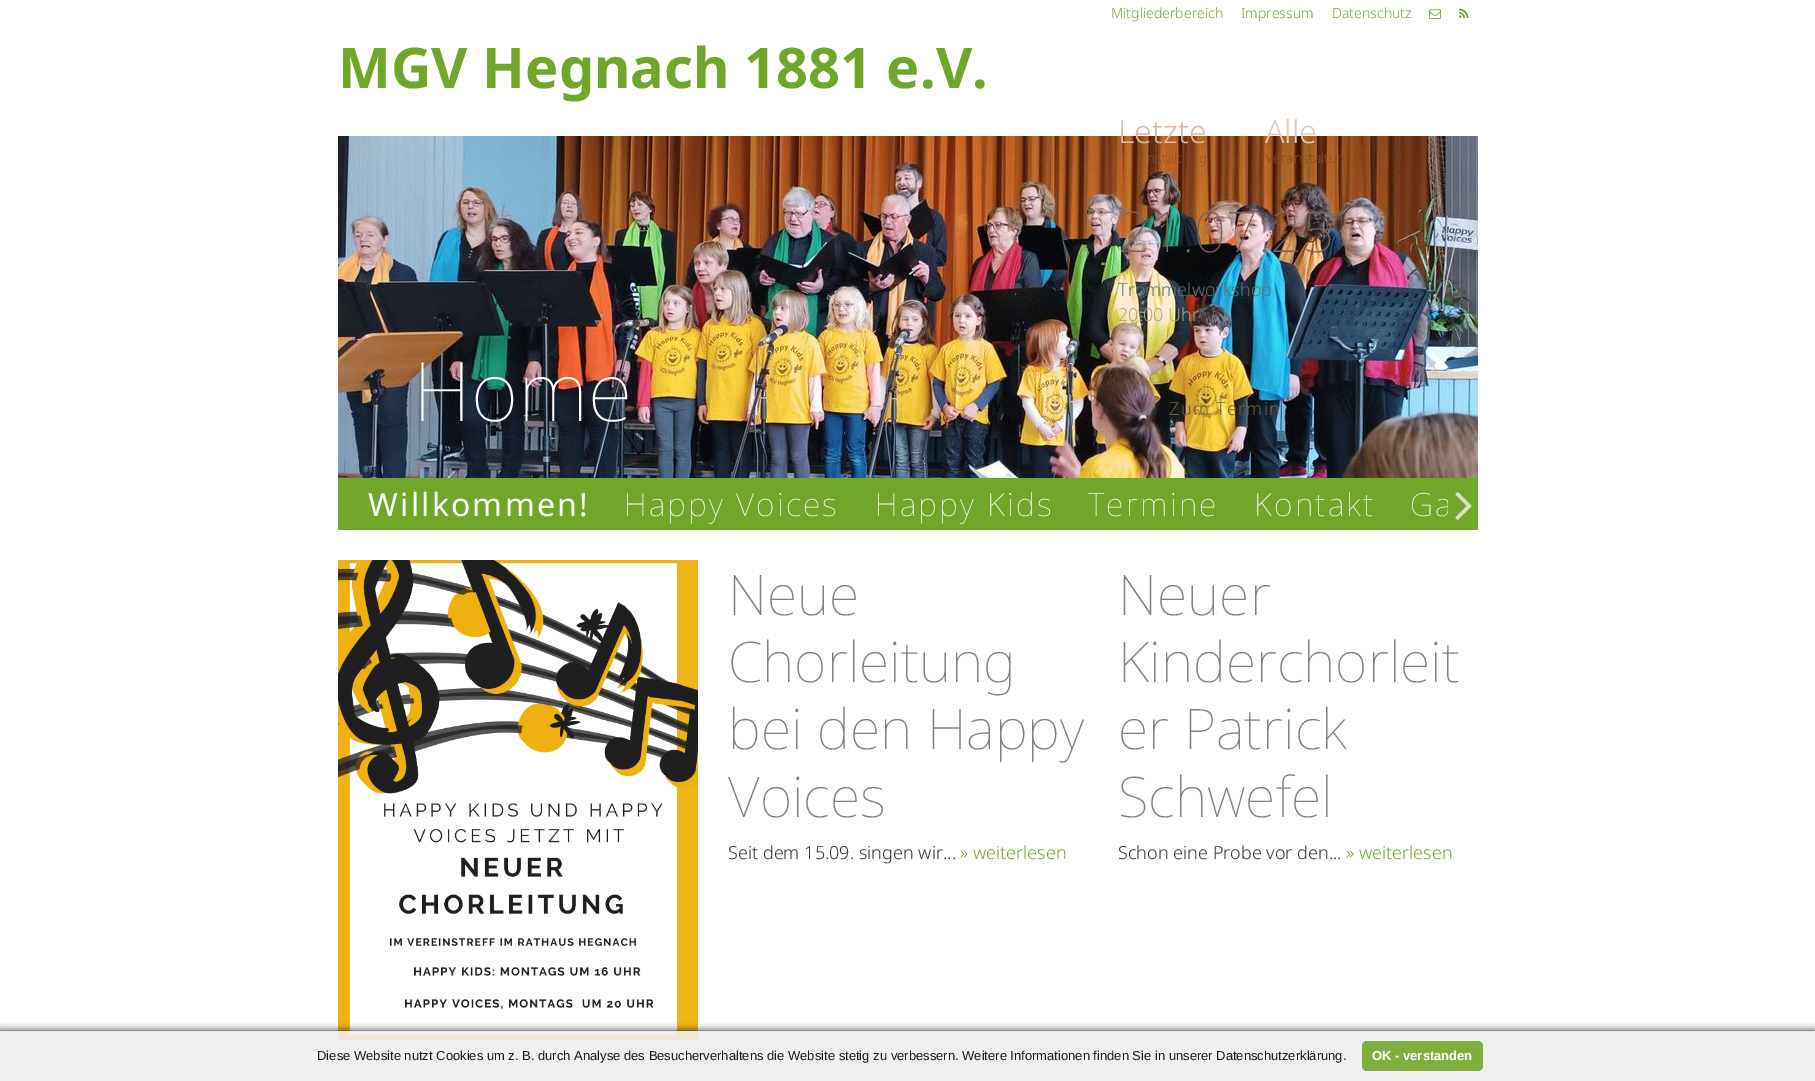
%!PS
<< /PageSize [1815 1081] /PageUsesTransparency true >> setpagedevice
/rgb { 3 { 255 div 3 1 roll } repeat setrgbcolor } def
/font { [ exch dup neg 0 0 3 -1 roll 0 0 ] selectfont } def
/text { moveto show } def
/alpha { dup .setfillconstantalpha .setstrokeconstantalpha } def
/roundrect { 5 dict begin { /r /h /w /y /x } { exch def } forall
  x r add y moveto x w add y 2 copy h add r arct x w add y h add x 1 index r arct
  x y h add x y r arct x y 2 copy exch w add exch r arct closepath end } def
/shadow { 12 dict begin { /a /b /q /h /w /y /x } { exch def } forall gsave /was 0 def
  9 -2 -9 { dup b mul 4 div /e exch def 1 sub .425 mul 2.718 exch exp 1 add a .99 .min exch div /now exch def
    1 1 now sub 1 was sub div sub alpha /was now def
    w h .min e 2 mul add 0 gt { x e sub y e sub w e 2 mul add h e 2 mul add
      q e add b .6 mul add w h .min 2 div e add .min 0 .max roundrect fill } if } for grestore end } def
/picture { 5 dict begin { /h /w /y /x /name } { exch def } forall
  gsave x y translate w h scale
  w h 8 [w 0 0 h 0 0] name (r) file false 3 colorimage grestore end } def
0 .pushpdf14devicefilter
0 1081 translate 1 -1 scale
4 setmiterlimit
255 255 255 rgb
0 0 1815 1081 rectfill
(img_01.rgb) 1429 9 12 10 picture
(img_02.rgb) 1459 8 10 10 picture
(img_03.rgb) 338 136 1140 342 picture
112 166 41 rgb
338 478 1140 52 rectfill
(img_04.rgb) 1455 492 17 28 picture
(img_05.rgb) 338 560 360 480 picture
gsave
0 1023 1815 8 rectclip
0 0 0 rgb
0 1031 1815 50 0 4 0.9 shadow
grestore
0.9 alpha
238 238 238 rgb
0 1031 1815 50 rectfill
1 alpha
126 175 62 rgb
1362 1041 121 30 5 roundrect fill
/NotoSans-Light 14 font
112 166 41 rgb
(Mitgliederbereich) 1111 18 text
(Impressum) 1241 18 text
(Datenschutz) 1332 18 text
/NotoSans-Bold 56 font
(MGV Hegnach 1881 e.V.) 338 88 text
/NotoSans-Thin 82 font
255 255 255 rgb
(Home) 413 421 text
/NotoSans-Light 32 font
214 186 168 rgb
(Letzte) 1118 143 text
/NotoSans-Light 14 font
153 80 31 rgb
(nstalt) 1147 163 text
(g) 1199 163 text
/NotoSans-Light 32 font
223 203 188 rgb
(Alle) 1265 143 text
/NotoSans-Light 14 font
140 73 29 rgb
(Veranstaltun) 1265 163 text
/NotoSans-Thin 56 font
124 100 88 rgb
(21.07.25) 1118 252 text
/NotoSans-Light 18 font
83 117 121 rgb
(Trommelworkshop) 1118 296 text
177 163 133 rgb
(20:00 Uhr) 1118 321 text
110 99 55 rgb
1169 415 moveto 1.25 0 (Zum Termin) ashow
/NotoSans-Regular 32 font
255 255 255 rgb
368 516 moveto 2.25 0 (Willkommen!) ashow
/NotoSans-Thin 32 font
624 516 moveto 2.25 0 (Happy Voices) ashow
875 516 moveto 2.25 0 (Happy Kids) ashow
1088 516 moveto 2.25 0 (Termine) ashow
1254 516 moveto 2.25 0 (Kontakt) ashow
gsave
368 478 1080 52 rectclip
1410 516 moveto 2.25 0 (Ga) ashow
grestore
/NotoSans-Thin 56 font
128 128 128 rgb
(Neue) 728 615 text
(Chorleitung) 728 682 text
(bei den Happy) 728 749 text
(Voices) 728 817 text
/NotoSans-Light 18 font
51 51 51 rgb
(Seit dem 15.09. singen wir...) 728 859 text
112 166 41 rgb
(» weiterlesen) 960 859 text
/NotoSans-Thin 56 font
128 128 128 rgb
(Neuer) 1118 615 text
(Kinderchorleit) 1118 682 text
(er Patrick) 1118 749 text
(Schwefel) 1118 817 text
/NotoSans-Light 18 font
51 51 51 rgb
(Schon eine Probe vor den...) 1118 859 text
112 166 41 rgb
(» weiterlesen) 1346 859 text
/LiberationSans-Regular 13 font
26 26 26 rgb
(Diese Website nutzt Cookies um z. B. durch Analyse des Besucherverhaltens die Website stetig zu verbessern. Weitere Informationen finden Sie in unserer Datenschutzerklärung.) 317 1060 text
/LiberationSans-Bold 13 font
255 255 255 rgb
(OK - verstanden) 1372 1060 text
.poppdf14devicefilter showpage
